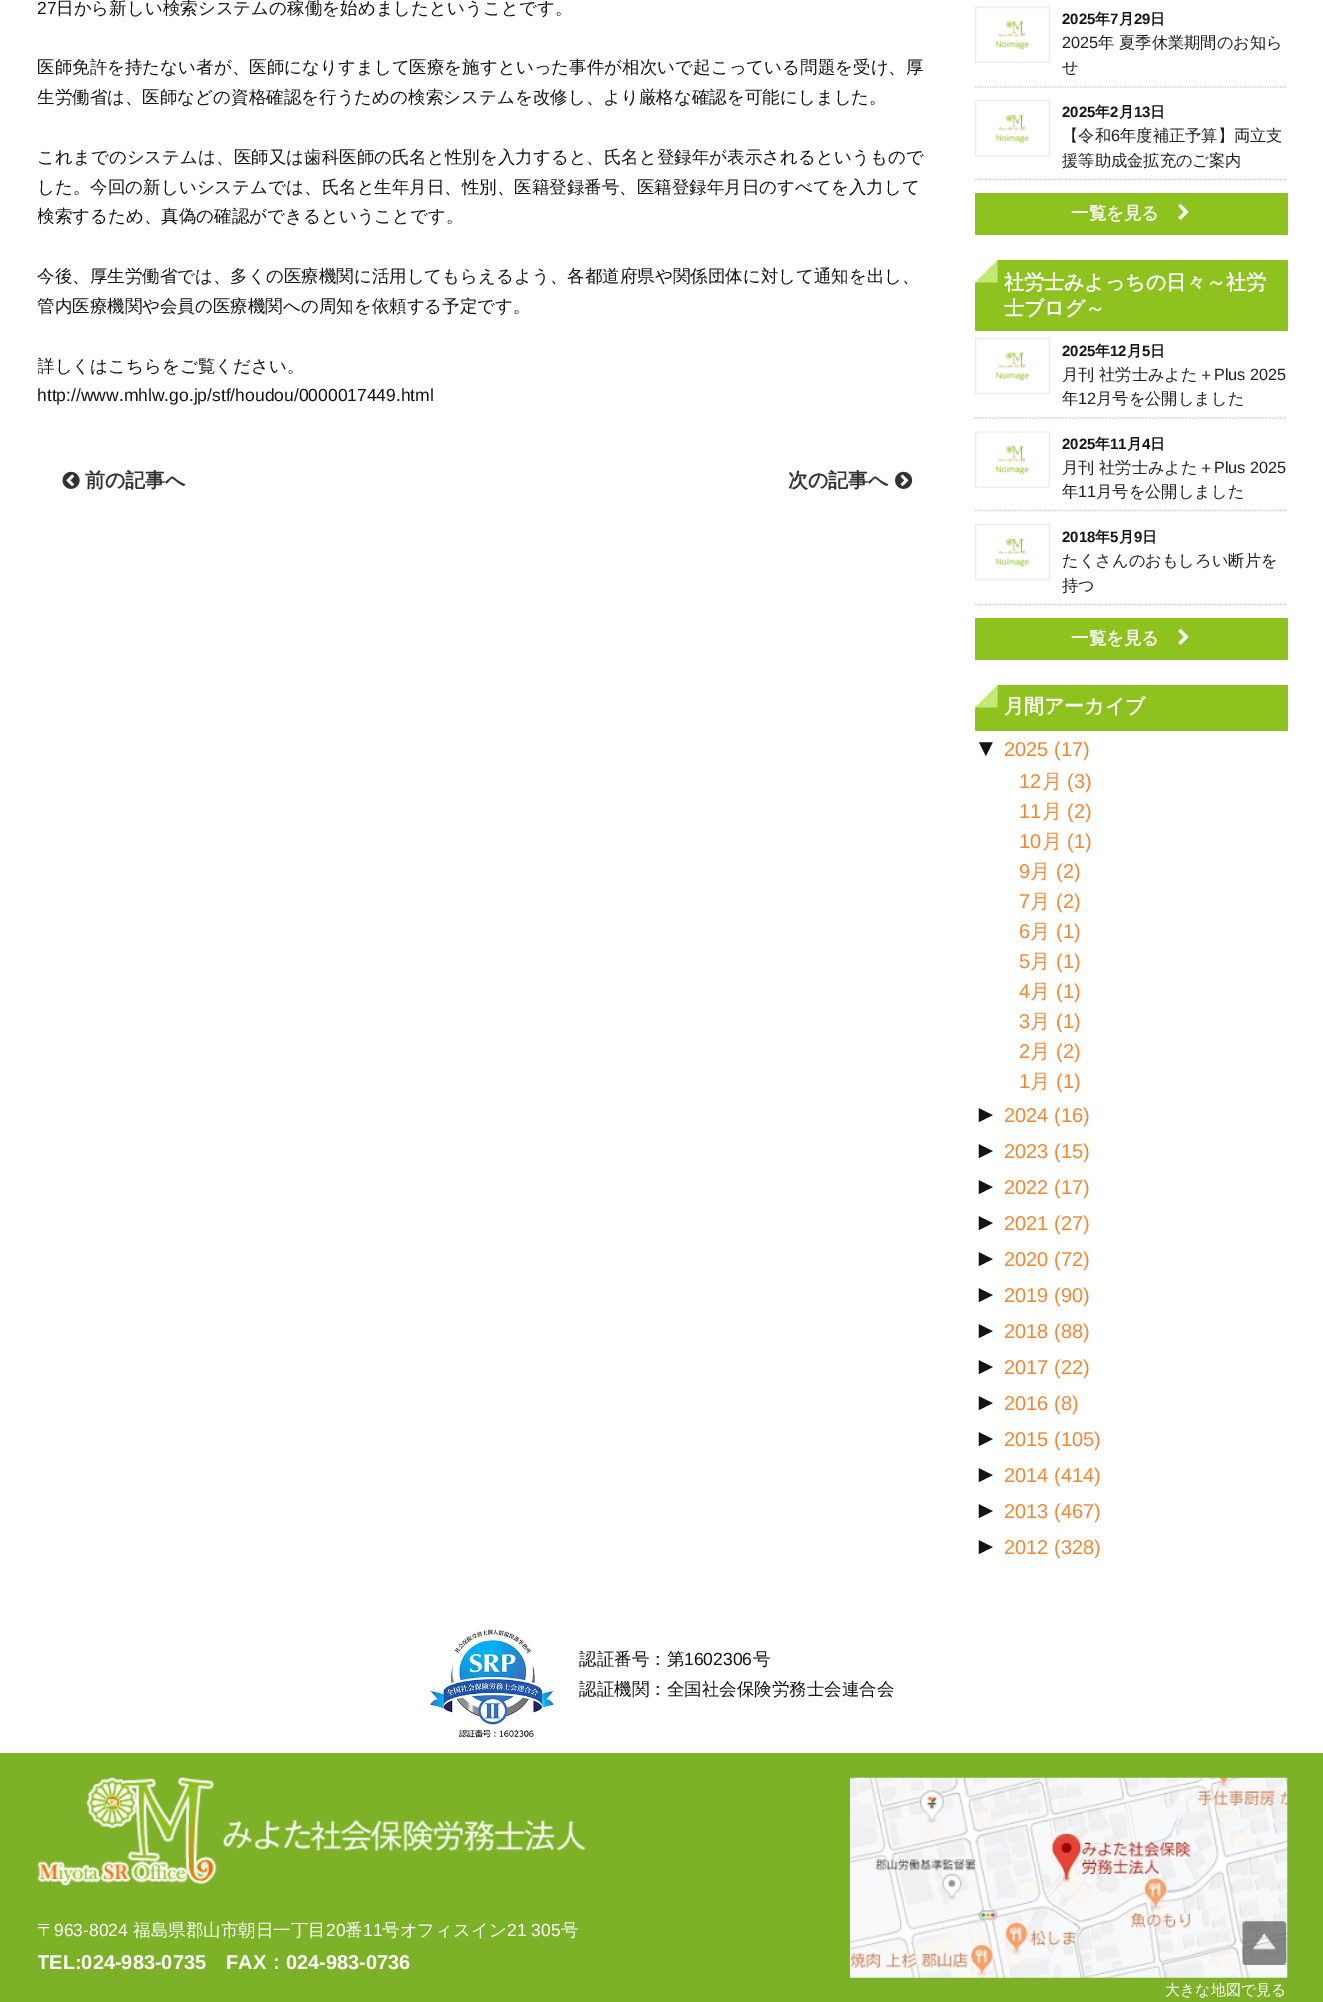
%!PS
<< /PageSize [1323 2002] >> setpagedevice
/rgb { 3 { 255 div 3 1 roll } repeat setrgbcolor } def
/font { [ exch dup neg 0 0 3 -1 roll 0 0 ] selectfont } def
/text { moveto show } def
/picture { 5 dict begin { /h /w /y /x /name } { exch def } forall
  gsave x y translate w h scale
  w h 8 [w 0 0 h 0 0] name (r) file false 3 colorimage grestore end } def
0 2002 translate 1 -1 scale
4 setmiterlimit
255 255 255 rgb
0 0 1323 2002 rectfill
(img_01.rgb) 62 471 18 18 picture
(img_02.rgb) 895 471 18 18 picture
(img_03.rgb) 975 6 75 57 picture
204 204 204 rgb
1.2 setlinewidth
[1.25 1.25] 0 setdash
975 87 moveto 312.5 0 rlineto stroke
(img_04.rgb) 975 100 75 57 picture
975 179.5 moveto 312.5 0 rlineto stroke
141 194 31 rgb
975 193 313 42 rectfill
(img_05.rgb) 1178 204 11 16 picture
975 260 313 71 rectfill
194 233 114 rgb
997.5 282.5 moveto -22.5 0 rlineto 22.5 -22.5 rlineto closepath fill
255 255 255 rgb
975 282.5 moveto 0 -22.5 rlineto 22.5 0 rlineto closepath fill
(img_06.rgb) 975 337 75 57 picture
204 204 204 rgb
975 418 moveto 312.5 0 rlineto stroke
(img_03.rgb) 975 431 75 57 picture
975 510.5 moveto 312.5 0 rlineto stroke
(img_07.rgb) 975 524 75 57 picture
975 604.5 moveto 312.5 0 rlineto stroke
141 194 31 rgb
975 618 313 42 rectfill
(img_05.rgb) 1178 629 11 16 picture
975 685 313 46 rectfill
194 233 114 rgb
997.5 707.5 moveto -22.5 0 rlineto 22.5 -22.5 rlineto closepath fill
255 255 255 rgb
975 707.5 moveto 0 -22.5 rlineto 22.5 0 rlineto closepath fill
(img_08.rgb) 430 1629 125 109 picture
125 178 40 rgb
0 1753 1323 249 rectfill
(img_09.rgb) 37 1777 549 109 picture
(img_10.rgb) 850 1777 438 201 picture
(img_11.rgb) 1242 1921 45 44 picture
/LiberationSans-Regular 17.5 font
20 20 18 rgb
(27) 37 14 text
/WenQuanYiZenHei-Medium 17.5 font
(日から新しい検索システムの稼働を始めましたということです。) 56 14 text
(医師免許を持たない者が、医師になりすまして医療を施すといった事件が相次いで起こっている問題を受け、厚) 37 73 text
gsave
38 0 1250 1565 rectclip
(生労働省は、医師などの資格確認を行うための検索システムを改修し、より厳格な確認を可能にしました。) 37 103 text
grestore
(これまでのシステムは、医師又は歯科医師の氏名と性別を入力すると、氏名と登録年が表示されるというもので) 37 163 text
(した。今回の新しいシステムでは、氏名と生年月日、性別、医籍登録番号、医籍登録年月日のすべてを入力して) 37 193 text
gsave
38 0 1250 1565 rectclip
(検索するため、真偽の確認ができるということです。) 37 222 text
grestore
(今後、厚生労働省では、多くの医療機関に活用してもらえるよう、各都道府県や関係団体に対して通知を出し、) 37 282 text
(管内医療機関や会員の医療機関への周知を依頼する予定です。) 37 312 text
gsave
38 0 1250 1565 rectclip
(詳しくはこちらをご覧ください。) 37 372 text
grestore
/LiberationSans-Regular 17.5 font
(http://www.mhlw.go.jp/stf/houdou/0000017449.html) 37 401 text
/WenQuanYiZenHei-Bold 20 font
51 51 51 rgb
(前の記事へ) 85 487 text
(次の記事へ) 788 487 text
/LiberationSans-Bold 15 font
20 20 18 rgb
(2025) 1062 24 text
/WenQuanYiZenHei-Bold 15 font
(年) 1095 24 text
/LiberationSans-Bold 15 font
(7) 1110 24 text
/WenQuanYiZenHei-Bold 15 font
(月) 1119 24 text
/LiberationSans-Bold 15 font
(29) 1134 24 text
/WenQuanYiZenHei-Bold 15 font
(日) 1150 24 text
/LiberationSans-Regular 16.25 font
34 34 34 rgb
(2025) 1062 48 text
/WenQuanYiZenHei-Medium 16.25 font
(年 夏季休業期間のお知ら) 1098 48 text
(せ) 1062 73 text
/LiberationSans-Bold 15 font
20 20 18 rgb
(2025) 1062 117 text
/WenQuanYiZenHei-Bold 15 font
(年) 1095 117 text
/LiberationSans-Bold 15 font
(2) 1110 117 text
/WenQuanYiZenHei-Bold 15 font
(月) 1119 117 text
/LiberationSans-Bold 15 font
(13) 1134 117 text
/WenQuanYiZenHei-Bold 15 font
(日) 1150 117 text
/WenQuanYiZenHei-Medium 16.25 font
34 34 34 rgb
(【令和) 1062 141 text
/LiberationSans-Regular 16.25 font
(6) 1111 141 text
/WenQuanYiZenHei-Medium 16.25 font
(年度補正予算】両立支) 1120 141 text
(援等助成金拡充のご案内) 1062 166 text
/WenQuanYiZenHei-Bold 17.5 font
255 255 255 rgb
(一覧を見る) 1071 219 text
/WenQuanYiZenHei-Bold 20 font
(社労士みよっちの日々～社労) 1004 289 text
(士ブログ～) 1004 315 text
/LiberationSans-Bold 15 font
20 20 18 rgb
(2025) 1062 356 text
/WenQuanYiZenHei-Bold 15 font
(年) 1095 356 text
/LiberationSans-Bold 15 font
(12) 1110 356 text
/WenQuanYiZenHei-Bold 15 font
(月) 1127 356 text
/LiberationSans-Bold 15 font
(5) 1142 356 text
/WenQuanYiZenHei-Bold 15 font
(日) 1150 356 text
/WenQuanYiZenHei-Medium 16.25 font
34 34 34 rgb
(月刊) 1062 380 text
(社労士みよた＋) 1099 380 text
/LiberationSans-Regular 16.25 font
(Plus 2025) 1214 380 text
/WenQuanYiZenHei-Medium 16.25 font
(年) 1062 404 text
/LiberationSans-Regular 16.25 font
(12) 1078 404 text
/WenQuanYiZenHei-Medium 16.25 font
(月号を公開しました) 1096 404 text
/LiberationSans-Bold 15 font
20 20 18 rgb
(2025) 1062 449 text
/WenQuanYiZenHei-Bold 15 font
(年) 1095 449 text
/LiberationSans-Bold 15 font
(11) 1110 449 text
/WenQuanYiZenHei-Bold 15 font
(月) 1127 449 text
/LiberationSans-Bold 15 font
(4) 1142 449 text
/WenQuanYiZenHei-Bold 15 font
(日) 1150 449 text
/WenQuanYiZenHei-Medium 16.25 font
34 34 34 rgb
(月刊) 1062 473 text
(社労士みよた＋) 1099 473 text
/LiberationSans-Regular 16.25 font
(Plus 2025) 1214 473 text
/WenQuanYiZenHei-Medium 16.25 font
(年) 1062 497 text
/LiberationSans-Regular 16.25 font
(11) 1078 497 text
/WenQuanYiZenHei-Medium 16.25 font
(月号を公開しました) 1096 497 text
/LiberationSans-Bold 15 font
20 20 18 rgb
(2018) 1062 542 text
/WenQuanYiZenHei-Bold 15 font
(年) 1095 542 text
/LiberationSans-Bold 15 font
(5) 1110 542 text
/WenQuanYiZenHei-Bold 15 font
(月) 1119 542 text
/LiberationSans-Bold 15 font
(9) 1134 542 text
/WenQuanYiZenHei-Bold 15 font
(日) 1142 542 text
/WenQuanYiZenHei-Medium 16.25 font
34 34 34 rgb
(たくさんのおもしろい断片を) 1062 566 text
(持つ) 1062 591 text
/WenQuanYiZenHei-Bold 17.5 font
255 255 255 rgb
(一覧を見る) 1071 644 text
/WenQuanYiZenHei-Bold 20 font
(月間アーカイブ) 1004 713 text
/LiberationSans-Regular 24 font
20 20 18 rgb
(▼) 974 756 text
/LiberationSans-Regular 20 font
243 134 49 rgb
(2025 \(17\)) 1004 756 text
(12) 1019 788 text
/WenQuanYiZenHei-Medium 20 font
(月) 1042 788 text
/LiberationSans-Regular 20 font
(\(3\)) 1067 788 text
(11) 1019 818 text
/WenQuanYiZenHei-Medium 20 font
(月) 1042 818 text
/LiberationSans-Regular 20 font
(\(2\)) 1067 818 text
(10) 1019 848 text
/WenQuanYiZenHei-Medium 20 font
(月) 1042 848 text
/LiberationSans-Regular 20 font
(\(1\)) 1067 848 text
(9) 1019 878 text
/WenQuanYiZenHei-Medium 20 font
(月) 1030 878 text
/LiberationSans-Regular 20 font
(\(2\)) 1056 878 text
(7) 1019 908 text
/WenQuanYiZenHei-Medium 20 font
(月) 1030 908 text
/LiberationSans-Regular 20 font
(\(2\)) 1056 908 text
(6) 1019 938 text
/WenQuanYiZenHei-Medium 20 font
(月) 1030 938 text
/LiberationSans-Regular 20 font
(\(1\)) 1056 938 text
(5) 1019 968 text
/WenQuanYiZenHei-Medium 20 font
(月) 1030 968 text
/LiberationSans-Regular 20 font
(\(1\)) 1056 968 text
(4) 1019 998 text
/WenQuanYiZenHei-Medium 20 font
(月) 1030 998 text
/LiberationSans-Regular 20 font
(\(1\)) 1056 998 text
(3) 1019 1028 text
/WenQuanYiZenHei-Medium 20 font
(月) 1030 1028 text
/LiberationSans-Regular 20 font
(\(1\)) 1056 1028 text
(2) 1019 1058 text
/WenQuanYiZenHei-Medium 20 font
(月) 1030 1058 text
/LiberationSans-Regular 20 font
(\(2\)) 1056 1058 text
(1) 1019 1088 text
/WenQuanYiZenHei-Medium 20 font
(月) 1030 1088 text
/LiberationSans-Regular 20 font
(\(1\)) 1056 1088 text
/LiberationSans-Regular 24 font
20 20 18 rgb
(►) 974 1122 text
/LiberationSans-Regular 20 font
243 134 49 rgb
(2024 \(16\)) 1004 1122 text
/LiberationSans-Regular 24 font
20 20 18 rgb
(►) 974 1158 text
/LiberationSans-Regular 20 font
243 134 49 rgb
(2023 \(15\)) 1004 1158 text
/LiberationSans-Regular 24 font
20 20 18 rgb
(►) 974 1194 text
/LiberationSans-Regular 20 font
243 134 49 rgb
(2022 \(17\)) 1004 1194 text
/LiberationSans-Regular 24 font
20 20 18 rgb
(►) 974 1230 text
/LiberationSans-Regular 20 font
243 134 49 rgb
(2021 \(27\)) 1004 1230 text
/LiberationSans-Regular 24 font
20 20 18 rgb
(►) 974 1266 text
/LiberationSans-Regular 20 font
243 134 49 rgb
(2020 \(72\)) 1004 1266 text
/LiberationSans-Regular 24 font
20 20 18 rgb
(►) 974 1302 text
/LiberationSans-Regular 20 font
243 134 49 rgb
(2019 \(90\)) 1004 1302 text
/LiberationSans-Regular 24 font
20 20 18 rgb
(►) 974 1338 text
/LiberationSans-Regular 20 font
243 134 49 rgb
(2018 \(88\)) 1004 1338 text
/LiberationSans-Regular 24 font
20 20 18 rgb
(►) 974 1374 text
/LiberationSans-Regular 20 font
243 134 49 rgb
(2017 \(22\)) 1004 1374 text
/LiberationSans-Regular 24 font
20 20 18 rgb
(►) 974 1410 text
/LiberationSans-Regular 20 font
243 134 49 rgb
(2016 \(8\)) 1004 1410 text
/LiberationSans-Regular 24 font
20 20 18 rgb
(►) 974 1446 text
/LiberationSans-Regular 20 font
243 134 49 rgb
(2015 \(105\)) 1004 1446 text
/LiberationSans-Regular 24 font
20 20 18 rgb
(►) 974 1482 text
/LiberationSans-Regular 20 font
243 134 49 rgb
(2014 \(414\)) 1004 1482 text
/LiberationSans-Regular 24 font
20 20 18 rgb
(►) 974 1518 text
/LiberationSans-Regular 20 font
243 134 49 rgb
(2013 \(467\)) 1004 1518 text
/LiberationSans-Regular 24 font
20 20 18 rgb
(►) 974 1554 text
/LiberationSans-Regular 20 font
243 134 49 rgb
(2012 \(328\)) 1004 1554 text
/WenQuanYiZenHei-Medium 17.5 font
20 20 18 rgb
(認証番号：第) 579 1665 text
/LiberationSans-Regular 17.5 font
(1602306) 684 1665 text
/WenQuanYiZenHei-Medium 17.5 font
(号) 753 1665 text
(認証機関：全国社会保険労務士会連合会) 579 1695 text
255 255 255 rgb
(〒) 37 1936 text
/LiberationSans-Regular 17.5 font
(963-8024) 54 1936 text
/WenQuanYiZenHei-Medium 17.5 font
(福島県郡山市朝日一丁目) 133 1936 text
/LiberationSans-Regular 17.5 font
(20) 326 1936 text
/WenQuanYiZenHei-Medium 17.5 font
(番) 345 1936 text
/LiberationSans-Regular 17.5 font
(11) 363 1936 text
/WenQuanYiZenHei-Medium 17.5 font
(号オフィスイン) 382 1936 text
/LiberationSans-Regular 17.5 font
(21 305) 507 1936 text
/WenQuanYiZenHei-Medium 17.5 font
(号) 561 1936 text
gsave
38 1753 1250 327 rectclip
/LiberationSans-Bold 20 font
(TEL:024‐983‐0735) 37 1969 text
grestore
/LiberationSans-Bold 20 font
(FAX) 226 1969 text
/WenQuanYiZenHei-Bold 20 font
(：) 266 1969 text
/LiberationSans-Bold 20 font
(024‐983‐0736) 286 1969 text
/WenQuanYiZenHei-Medium 15 font
(大きな地図で見る) 1165 1995 text
showpage
